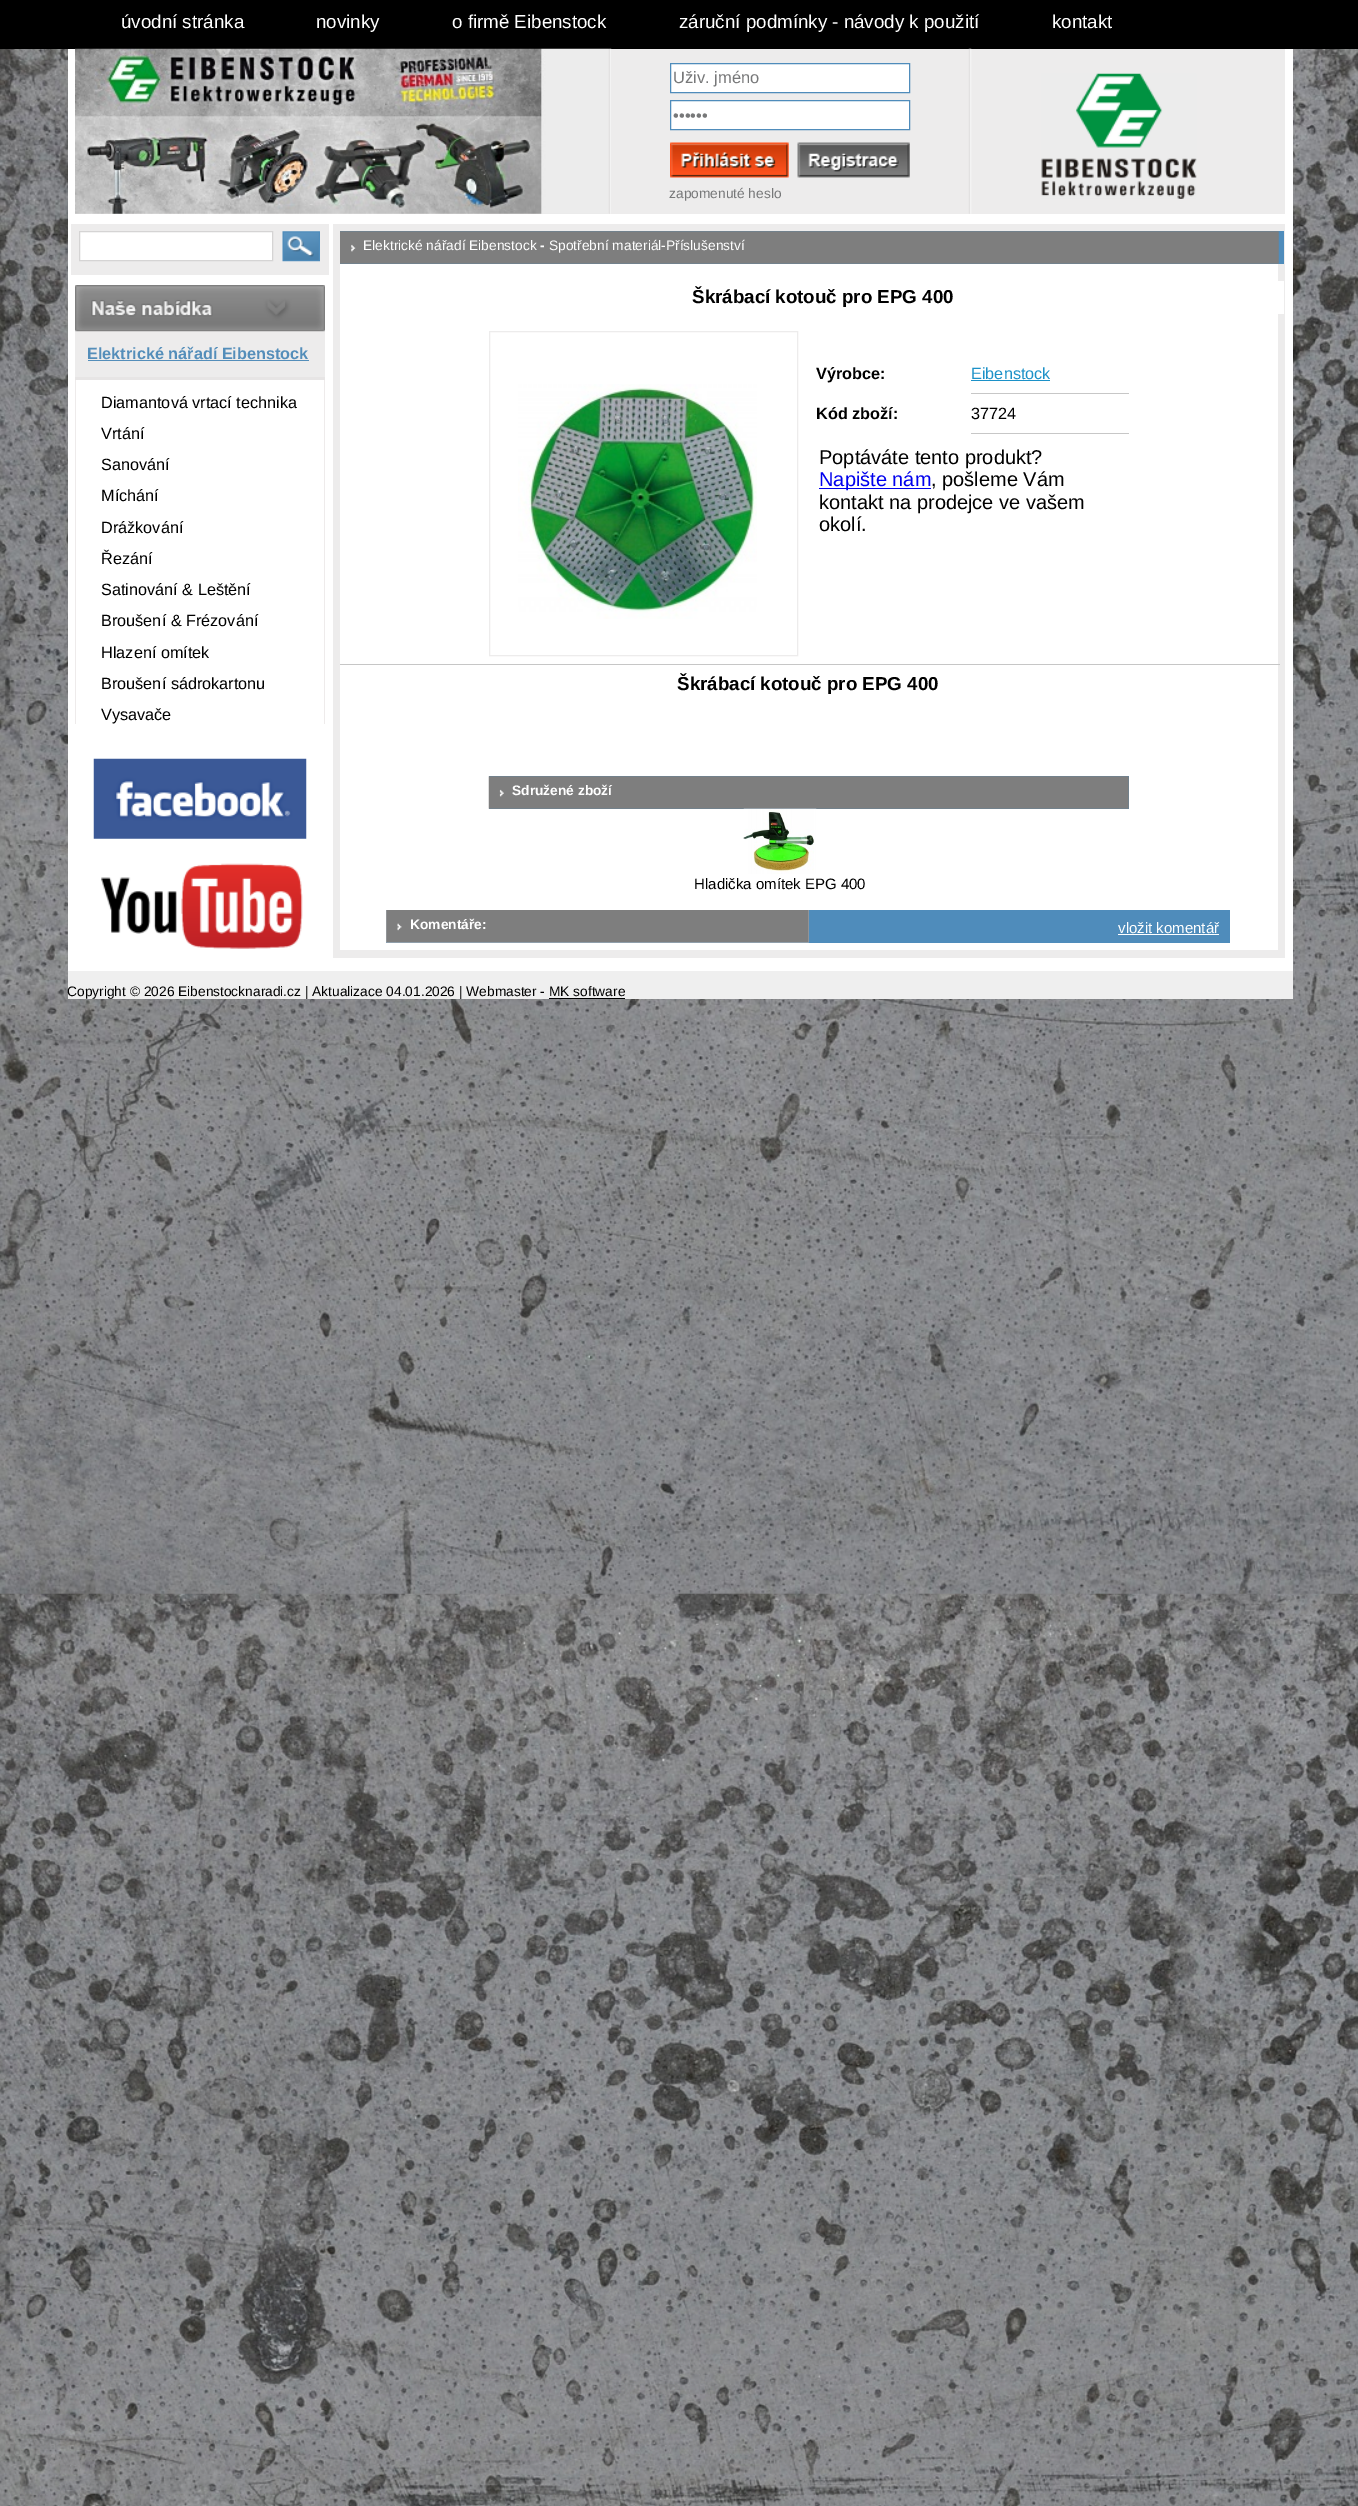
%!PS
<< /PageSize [1358 2506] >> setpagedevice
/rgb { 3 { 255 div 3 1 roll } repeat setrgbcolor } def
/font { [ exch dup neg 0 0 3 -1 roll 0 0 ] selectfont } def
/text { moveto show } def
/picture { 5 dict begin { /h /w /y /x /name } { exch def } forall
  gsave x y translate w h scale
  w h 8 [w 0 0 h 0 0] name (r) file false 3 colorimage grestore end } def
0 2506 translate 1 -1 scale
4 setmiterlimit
255 255 255 rgb
0 0 1358 2506 rectfill
(img_01.rgb) 0 49 1358 2457 picture
0 0 0 rgb
0 0 1358 49 rectfill
255 255 255 rgb
68 49 1225 922 rectfill
237 236 236 rgb
75 49 1210 165 rectfill
(img_02.rgb) 75 48 534 166 picture
(img_03.rgb) 608 48 4 166 picture
611 49 1 165 rectfill
255 255 255 rgb
670.5 63.5 moveto 239 0 rlineto 0 29 rlineto -239 0 rlineto closepath gsave fill grestore
79 140 187 rgb
stroke
255 255 255 rgb
670.5 100.5 moveto 239 0 rlineto 0 29 rlineto -239 0 rlineto closepath gsave fill grestore
79 140 187 rgb
stroke
(img_04.rgb) 670 142 119 36 picture
(img_05.rgb) 797 142 113 36 picture
(img_06.rgb) 968 48 4 166 picture
(img_07.rgb) 1041 73 156 126 picture
237 236 236 rgb
71 224 258 51 rectfill
255 255 255 rgb
79.5 231.5 moveto 193 0 rlineto 0 29 rlineto -193 0 rlineto closepath gsave fill grestore
213 212 212 rgb
stroke
(img_08.rgb) 282 231 38 31 picture
237 236 236 rgb
75 331 250 46 rectfill
(img_09.rgb) 75 285 250 47 picture
231 229 229 rgb
75 377 250 3 rectfill
84 142 186 rgb
88 360 221 1 rectfill
238 235 235 rgb
324 380 1 344 rectfill
75 380 1 344 rectfill
(img_10.rgb) 93 758 214 81 picture
(img_11.rgb) 101 863 202 86 picture
237 236 236 rgb
333 224 952 734 rectfill
255 255 255 rgb
340 264 938 686 rectfill
79 140 187 rgb
340 231 944 33 rectfill
(img_12.rgb) 340 231 939 33 picture
255 255 255 rgb
1278 281 6 33 rectfill
237 236 236 rgb
489.5 331.5 308 324 rectstroke
(img_13.rgb) 518 384 239 235 picture
199 199 199 rgb
971 393 158 1 rectfill
28 145 200 rgb
971 380 79 1 rectfill
199 199 199 rgb
971 433 158 1 rectfill
0 0 238 rgb
819 488 112 1 rectfill
198 198 198 rgb
340 664 940 1 rectfill
79 140 187 rgb
489 776 640 33 rectfill
(img_14.rgb) 488 776 641 33 picture
(img_15.rgb) 743 808 74 66 picture
386 910 844 33 rectfill
(img_16.rgb) 386 910 423 33 picture
255 255 255 rgb
1118 934 101 1 rectfill
239 239 239 rgb
68 971 1225 28 rectfill
0 0 0 rgb
549 998 76 1 rectfill
/LiberationSans-Regular 18.75 font
255 255 255 rgb
(úvodní stránka) 121 28 text
(novinky) 316 28 text
(o firmě Eibenstock) 452 28 text
(záruční podmínky - návody k použití) 679 28 text
(kontakt) 1052 28 text
/LiberationSans-Regular 16.5 font
119 120 121 rgb
(Uživ. jméno) 673 83 text
(••••••) 673 121 text
/LiberationSans-Regular 13.75 font
(zapomenuté heslo) 669 198 text
/LiberationSans-Bold 16.25 font
84 142 186 rgb
(Elektrické nářadí Eibenstock) 87 359 text
/LiberationSans-Regular 16.25 font
0 0 0 rgb
(Diamantová vrtací technika) 101 408 text
(Vrtání) 101 439 text
(Sanování) 101 470 text
(Míchání) 101 501 text
(Drážkování) 101 533 text
(Řezání) 101 564 text
(Satinování & Leštění) 101 595 text
(Broušení & Frézování) 101 626 text
(Hlazení omítek) 101 658 text
(Broušení sádrokartonu) 101 689 text
(Vysavače) 101 720 text
/LiberationSans-Regular 13.75 font
255 255 255 rgb
(Elektrické nářadí Eibenstock) 363 250 text
/LiberationSans-Bold 13.75 font
(-) 540 250 text
/LiberationSans-Regular 13.75 font
(Spotřební materiál-Příslušenství) 549 250 text
/LiberationSans-Bold 18.75 font
0 0 0 rgb
(Škrábací kotouč pro EPG 400) 692 303 text
/LiberationSans-Bold 16.25 font
(Výrobce:) 816 379 text
/LiberationSans-Regular 16.25 font
28 145 200 rgb
(Eibenstock) 971 379 text
/LiberationSans-Bold 16.25 font
0 0 0 rgb
(Kód zboží:) 816 419 text
/LiberationSans-Regular 16.25 font
(37724) 971 419 text
/LiberationSans-Regular 20 font
(Poptáváte tento produkt?) 819 464 text
0 0 238 rgb
(Napište nám) 819 486 text
0 0 0 rgb
(, pošleme Vám) 931 486 text
(kontakt na prodejce ve vašem) 819 509 text
(okolí.) 819 531 text
/LiberationSans-Bold 18.75 font
(Škrábací kotouč pro EPG 400) 677 690 text
/LiberationSans-Bold 13.75 font
255 255 255 rgb
(Sdružené zboží) 512 795 text
/LiberationSans-Regular 15 font
0 0 0 rgb
(Hladička omítek EPG 400) 694 889 text
/LiberationSans-Bold 13.75 font
255 255 255 rgb
(Komentáře:) 410 929 text
/LiberationSans-Regular 15 font
(vložit komentář) 1118 933 text
/LiberationSans-Regular 13.75 font
0 0 0 rgb
(Copyright © 2026 Eibenstocknaradi.cz | Aktualizace 04.01.2026 | Webmaster - MK software) 67 996 text
showpage
